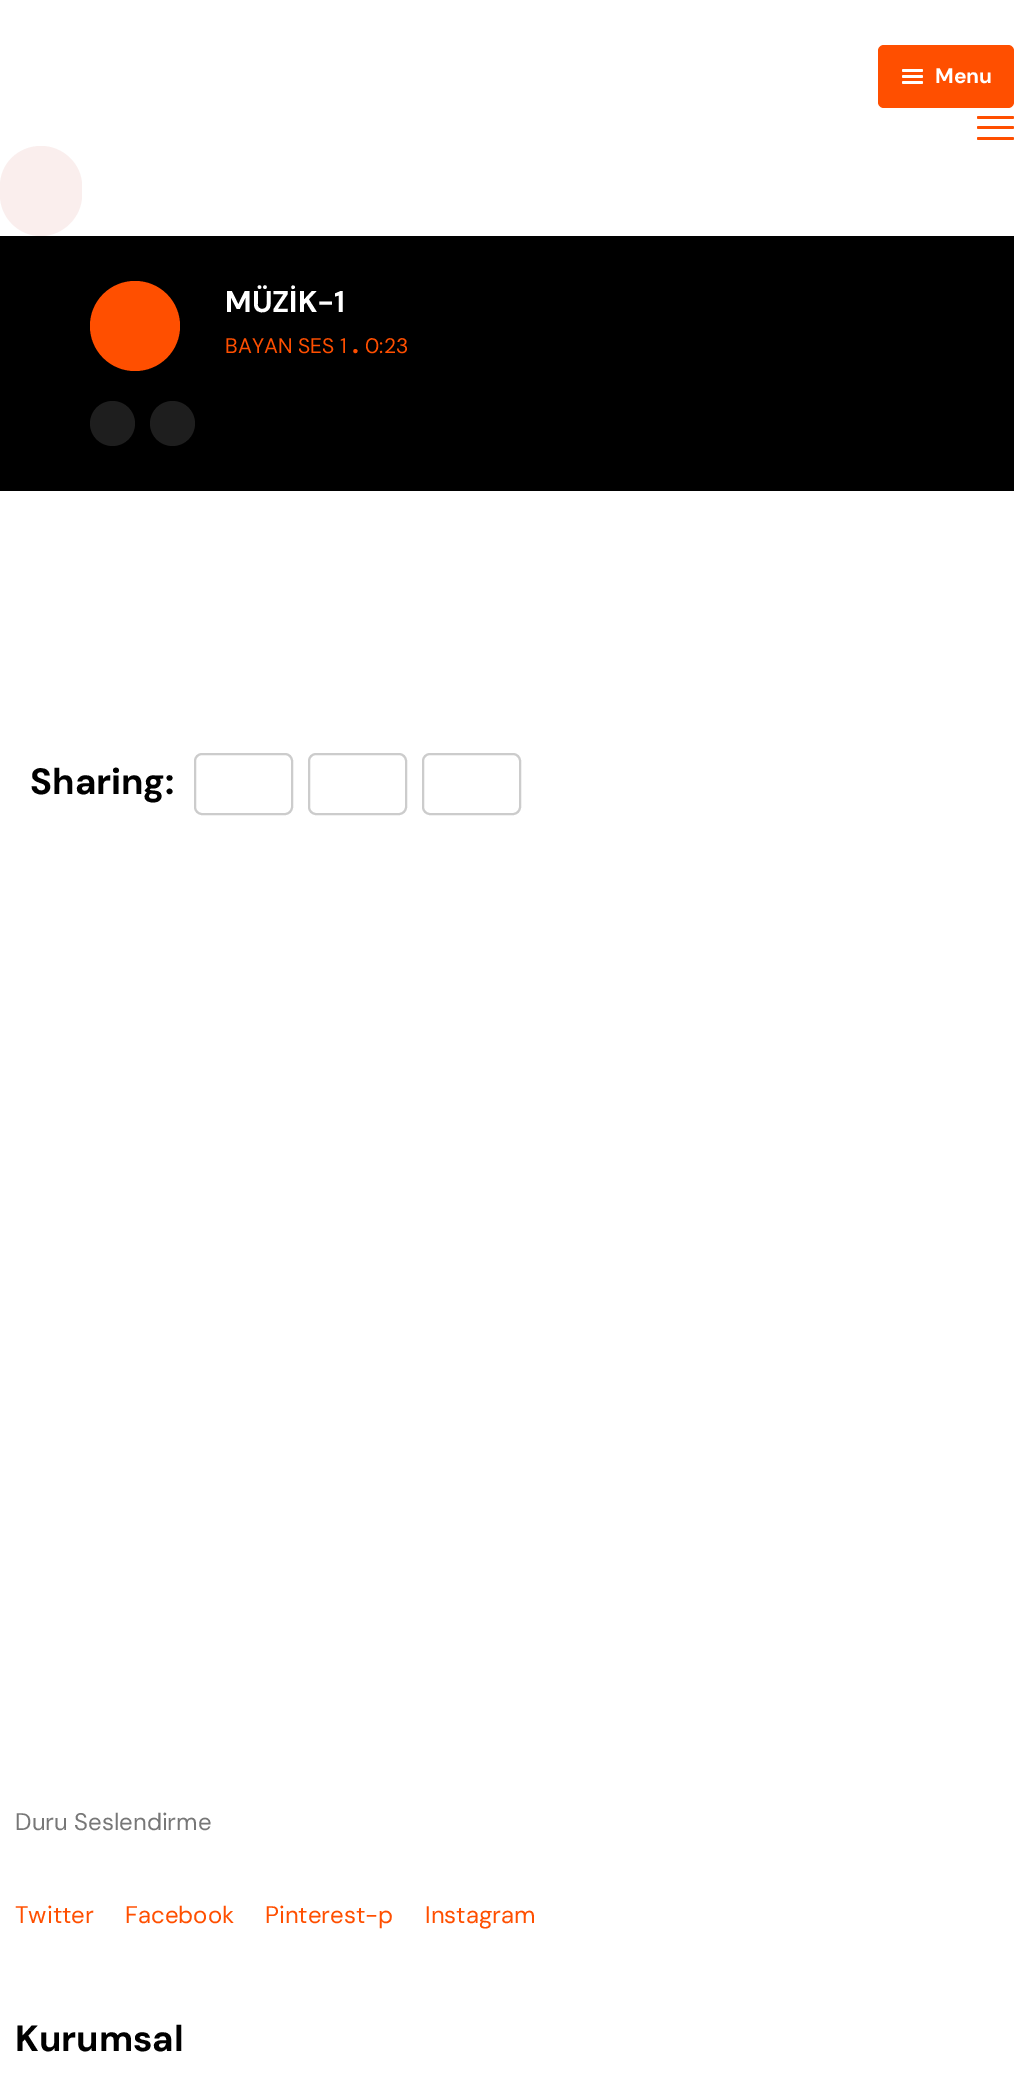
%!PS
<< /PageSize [1014 2100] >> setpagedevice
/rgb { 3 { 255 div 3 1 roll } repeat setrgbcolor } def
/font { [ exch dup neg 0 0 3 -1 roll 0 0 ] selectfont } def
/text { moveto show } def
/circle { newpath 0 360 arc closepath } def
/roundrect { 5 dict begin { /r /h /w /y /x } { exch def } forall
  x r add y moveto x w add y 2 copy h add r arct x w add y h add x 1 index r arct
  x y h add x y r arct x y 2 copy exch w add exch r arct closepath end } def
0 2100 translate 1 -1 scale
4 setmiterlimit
255 255 255 rgb
0 0 1014 2100 rectfill
255 79 0 rgb
878 45 136 63 6 roundrect fill
255 255 255 rgb
902 69 21 3 1.5 roundrect fill
902 75 21 3 1.5 roundrect fill
902 81 21 3 1.5 roundrect fill
255 79 0 rgb
977 116 37 3 1.5 roundrect fill
977 126 37 3 1.5 roundrect fill
977 137 37 3 1.5 roundrect fill
250 238 237 rgb
41 146 moveto -23 0 -41 18 -41 40 rcurveto 0 9 rlineto 0 22 18 41 41 41 rcurveto 22 0 41 -19 41 -41 rcurveto 0 -9 rlineto 0 -22 -19 -40 -41 -40 rcurveto closepath fill
0 0 0 rgb
0 236 1014 255 rectfill
255 79 0 rgb
135 326 45 circle fill
30 30 30 rgb
112.5 423.5 22.5 circle fill
172.5 423.5 22.5 circle fill
204 204 204 rgb
2 setlinewidth
195 754 97 60 7 roundrect stroke
309 754 97 60 7 roundrect stroke
423 754 97 60 7 roundrect stroke
/DMSans-Bold 21 font
255 255 255 rgb
(Menu) 935 83 text
/DMSans-Bold 30 font
(MÜZİK-1) 225 312 text
/DMSans-Regular 21 font
255 79 0 rgb
(BAYAN SES 1) 225 353 text
/DMSans-Bold 27 font
(.) 352 353 text
/DMSans-Regular 21 font
(0:23) 365 353 text
/DMSans-Bold 36.5 font
0 0 0 rgb
(Sharing:) 30 794 text
/DMSans-Regular 24 font
119 119 119 rgb
(Duru Seslendirme) 15 1830 text
255 79 0 rgb
(Twitter) 15 1923 text
(Facebook) 125 1923 text
(Pinterest-p) 265 1923 text
(Instagram) 425 1923 text
/DMSans-Bold 36.5 font
0 0 0 rgb
(Kurumsal) 15 2051 text
showpage
